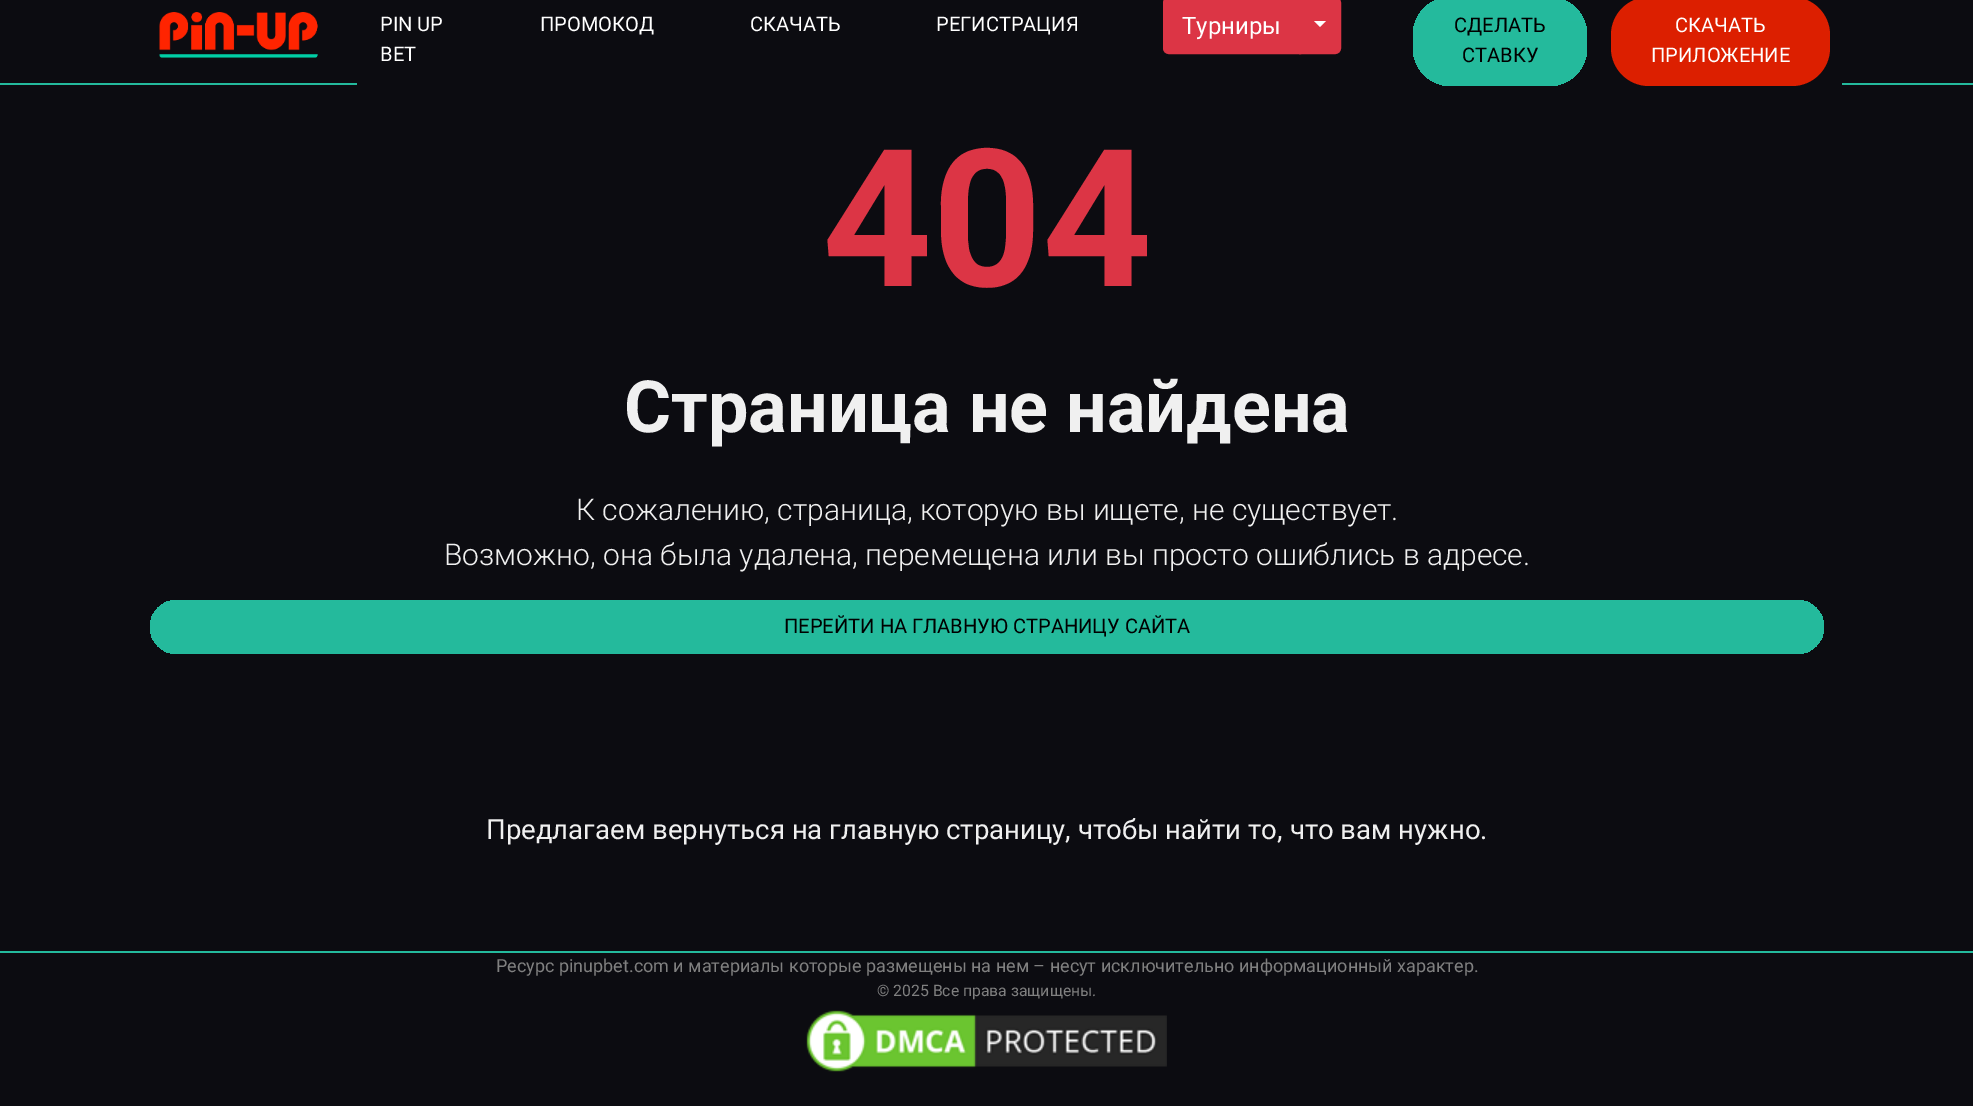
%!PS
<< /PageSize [1973 1106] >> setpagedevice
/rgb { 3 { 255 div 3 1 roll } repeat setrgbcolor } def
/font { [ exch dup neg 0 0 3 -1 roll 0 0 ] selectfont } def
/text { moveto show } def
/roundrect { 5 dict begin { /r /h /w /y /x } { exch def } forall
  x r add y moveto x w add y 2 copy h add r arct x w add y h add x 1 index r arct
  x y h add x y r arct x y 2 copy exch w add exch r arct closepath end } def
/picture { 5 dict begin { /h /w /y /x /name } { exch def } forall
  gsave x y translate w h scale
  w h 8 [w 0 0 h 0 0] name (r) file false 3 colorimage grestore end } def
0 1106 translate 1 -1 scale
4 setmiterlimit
12 12 17 rgb
0 0 1973 1106 rectfill
36 186 157 rgb
0 83 1973 2 rectfill
(img_01.rgb) 159 12 159 46 picture
12 12 17 rgb
357 83 1485 2 rectfill
220 53 69 rgb
1169 -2 moveto 131 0 rlineto 0 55 rlineto -131 0 rlineto -3 0 -5 -2 -5 -5 rcurveto 0 -45 rlineto 0 -3 2 -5 5 -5 rcurveto closepath gsave fill grestore
2 setlinewidth
stroke
1300 -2 moveto 35 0 rlineto 3 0 5 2 5 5 rcurveto 0 45 rlineto 0 3 -2 5 -5 5 rcurveto -35 0 rlineto closepath gsave fill grestore
stroke
255 255 255 rgb
1314 21 moveto 12 0 rlineto -6 6 rlineto closepath fill
gsave 1413 -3 174 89 38 roundrect clip newpath
<< /ShadingType 2 /ColorSpace /DeviceRGB /Coords [1500 -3 1500 86] /Extend [true true] /Function << /FunctionType 3 /Domain [0 1] /Functions [<< /FunctionType 2 /Domain [0 1] /C0 [0.141 0.729 0.616] /C1 [0.141 0.729 0.612] /N 1 >> << /FunctionType 2 /Domain [0 1] /C0 [0.141 0.729 0.612] /C1 [0.141 0.729 0.616] /N 1 >>] /Bounds [0.5] /Encode [0 1 0 1] >> >> shfill grestore
220 31 0 rgb
1611 -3 219 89 38 roundrect fill
gsave 150 600 1674 54 27 roundrect clip newpath
<< /ShadingType 2 /ColorSpace /DeviceRGB /Coords [987 600 987 654] /Extend [true true] /Function << /FunctionType 3 /Domain [0 1] /Functions [<< /FunctionType 2 /Domain [0 1] /C0 [0.141 0.729 0.616] /C1 [0.141 0.729 0.612] /N 1 >> << /FunctionType 2 /Domain [0 1] /C0 [0.141 0.729 0.612] /C1 [0.141 0.729 0.616] /N 1 >>] /Bounds [0.5] /Encode [0 1 0 1] >> >> shfill grestore
36 186 157 rgb
0 951 1973 2 rectfill
(img_02.rgb) 806 1010 361 62 picture
/Roboto-Regular 20.1 font
255 255 255 rgb
(PIN UP) 380 31 text
(BET) 380 61 text
(ПРОМОКОД) 540 31 text
(СКАЧАТЬ) 750 31 text
(РЕГИСТРАЦИЯ) 936 31 text
/Roboto-Regular 24 font
(Турниры) 1182 34 text
/Roboto-Regular 20.1 font
0 0 0 rgb
(СДЕЛАТЬ) 1454 32 text
(СТАВКУ) 1462 62 text
255 255 255 rgb
(СКАЧАТЬ) 1675 32 text
(ПРИЛОЖЕНИЕ) 1651 62 text
/Roboto-Bold 192 font
220 53 69 rgb
(404) 822 286 text
/Roboto-Bold 72 font
240 240 240 rgb
(Страница не найдена) 624 432 text
/Roboto-Light 30 font
(К сожалению, страница, которую вы ищете, не существует.) 576 520 text
(Возможно, она была удалена, перемещена или вы просто ошиблись в адресе.) 444 565 text
/Roboto-Regular 20.1 font
0 0 0 rgb
(ПЕРЕЙТИ НА ГЛАВНУЮ СТРАНИЦУ САЙТА) 784 633 text
/Roboto-Regular 27.6 font
240 240 240 rgb
(Предлагаем вернуться на главную страницу, чтобы найти то, что вам нужно.) 486 839 text
/Roboto-Regular 18 font
128 128 128 rgb
(Ресурс pinupbet.com и материалы которые размещены на нем – несут исключительно информационный характер.) 496 972 text
/Roboto-Regular 15.75 font
(© 2025 Все права защищены.) 877 996 text
showpage
